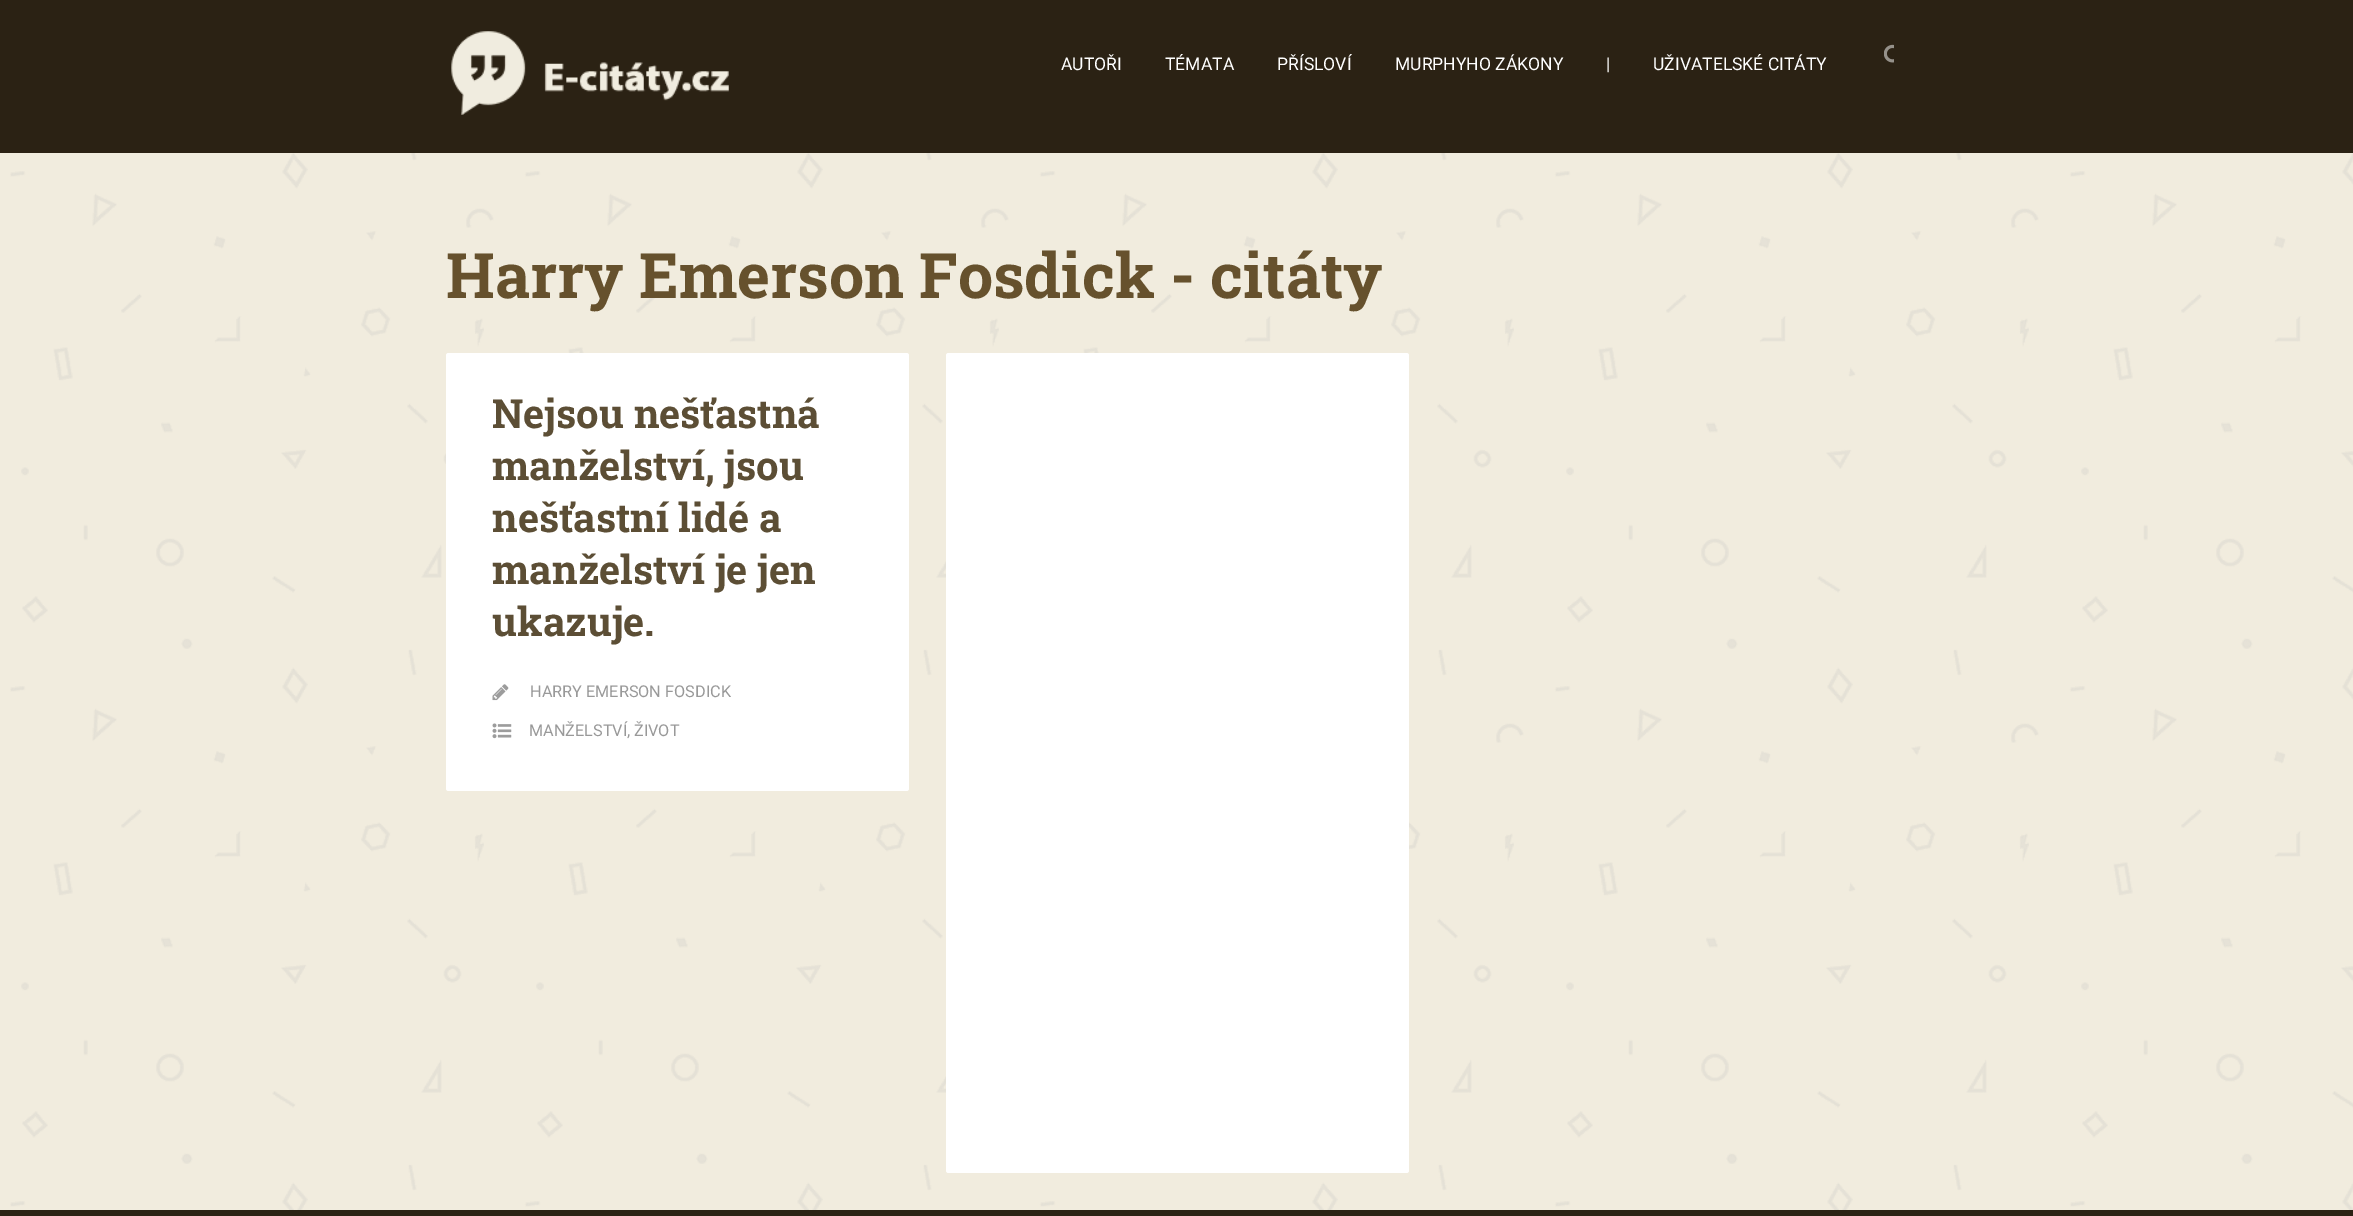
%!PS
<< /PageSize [2353 1216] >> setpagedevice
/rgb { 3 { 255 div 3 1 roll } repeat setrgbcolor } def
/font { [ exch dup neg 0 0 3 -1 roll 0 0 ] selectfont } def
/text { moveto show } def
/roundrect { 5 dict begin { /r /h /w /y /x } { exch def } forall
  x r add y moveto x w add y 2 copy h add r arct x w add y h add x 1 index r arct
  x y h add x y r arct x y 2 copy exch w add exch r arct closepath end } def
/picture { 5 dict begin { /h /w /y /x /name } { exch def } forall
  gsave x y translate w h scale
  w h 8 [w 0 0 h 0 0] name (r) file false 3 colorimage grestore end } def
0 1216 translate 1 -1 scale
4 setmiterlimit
241 236 222 rgb
0 0 2353 1216 rectfill
(img_01.rgb) 10 153 2343 1057 picture
43 34 20 rgb
0 0 2353 153 rectfill
(img_02.rgb) 451 31 278 84 picture
(img_03.rgb) 1884 44 10 19 picture
255 255 255 rgb
446 353 463 438 2.5 roundrect fill
(img_04.rgb) 492 684 17 17 picture
(img_05.rgb) 492 723 20 16 picture
946 353 463 820 2.5 roundrect fill
43 34 20 rgb
0 1210 2353 6 rectfill
/Roboto-Regular 17.5 font
255 255 255 rgb
(AUTOŘI) 1061 70 text
(TÉMATA) 1165 70 text
(PŘÍSLOVÍ) 1277 70 text
(MURPHYHO ZÁKONY) 1395 70 text
(|) 1606 70 text
(UŽIVATELSKÉ CITÁTY) 1653 70 text
/RobotoSlab-Bold 62.5 font
102 81 45 rgb
(Harry Emerson Fosdick - citáty) 446 298 text
/RobotoSlab-Bold 40 font
92 78 53 rgb
(Nejsou nešťastná) 492 428 text
(manželství, jsou) 492 480 text
(nešťastní lidé a) 492 532 text
(manželství je jen) 492 584 text
(ukazuje.) 492 636 text
/Roboto-Regular 16.25 font
153 153 153 rgb
(HARRY EMERSON FOSDICK) 530 697 text
(MANŽELSTVÍ) 529 736 text
(,) 627 736 text
(ŽIVOT) 634 736 text
showpage
